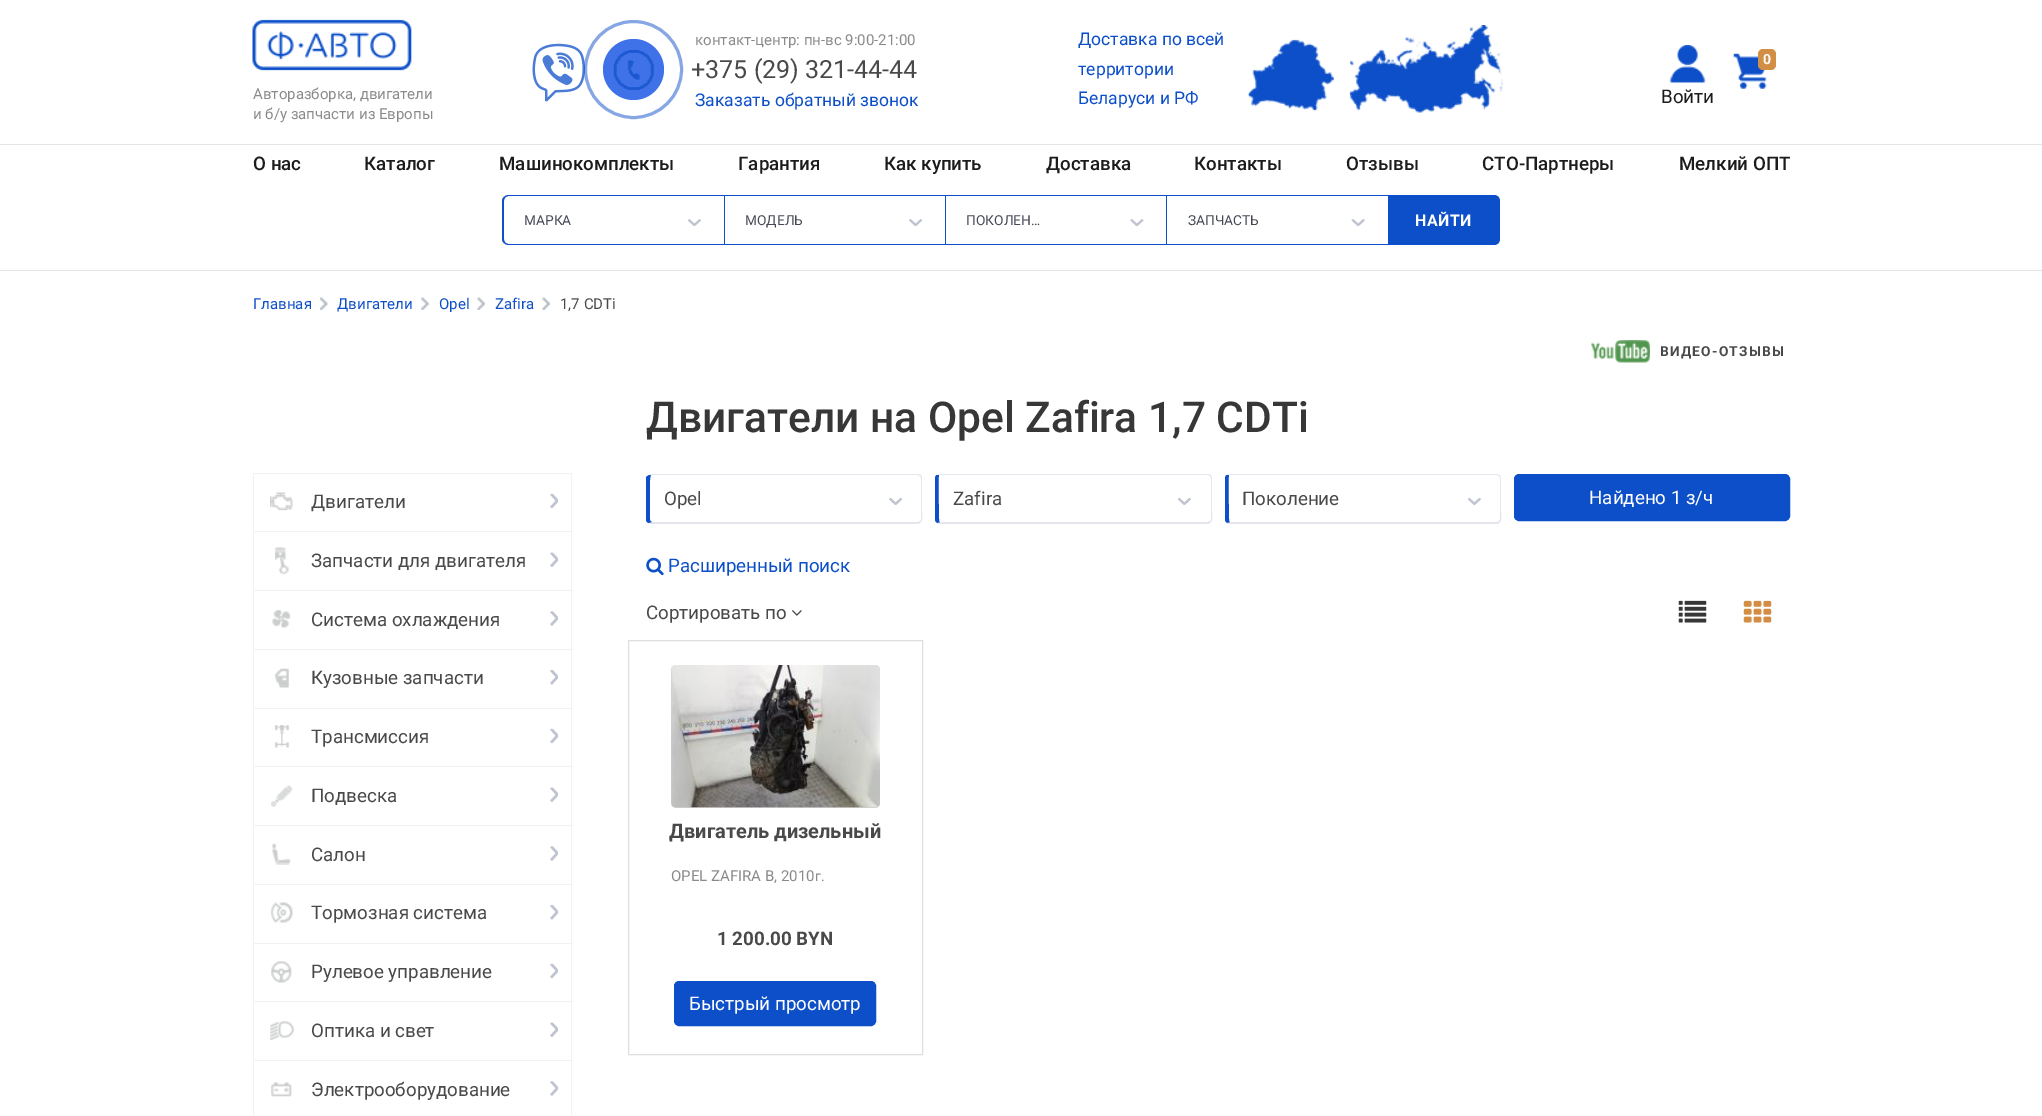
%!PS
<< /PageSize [2042 1116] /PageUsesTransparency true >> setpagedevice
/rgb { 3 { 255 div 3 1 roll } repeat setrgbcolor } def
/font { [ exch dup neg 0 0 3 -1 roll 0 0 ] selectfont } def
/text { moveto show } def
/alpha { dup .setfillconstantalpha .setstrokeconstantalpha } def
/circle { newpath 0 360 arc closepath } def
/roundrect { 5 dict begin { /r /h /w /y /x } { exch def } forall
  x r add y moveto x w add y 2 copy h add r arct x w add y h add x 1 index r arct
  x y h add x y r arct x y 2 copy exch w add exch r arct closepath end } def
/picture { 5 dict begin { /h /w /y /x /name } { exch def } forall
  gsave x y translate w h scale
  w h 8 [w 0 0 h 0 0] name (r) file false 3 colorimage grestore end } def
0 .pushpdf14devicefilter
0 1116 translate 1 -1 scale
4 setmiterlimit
255 255 255 rgb
0 0 2042 1116 rectfill
229 229 229 rgb
0 270 2042 1 rectfill
(img_01.rgb) 532 43 53 59 picture
0.5 alpha
13 79 200 rgb
3 setlinewidth
633.5 69.5 48 circle stroke
1 alpha
63 114 232 rgb
633.5 69.5 30.5 circle fill
(img_02.rgb) 613 50 41 40 picture
(img_03.rgb) 1248 25 255 88 picture
(img_04.rgb) 1733 53 34 36 picture
211 142 70 rgb
1758 49 18 21 5 roundrect fill
(img_05.rgb) 252 19 160 52 picture
(img_06.rgb) 1669 45 37 38 picture
229 229 229 rgb
0 144 2042 1 rectfill
13 79 200 rgb
509 195 moveto 215 0 rlineto 0 50 rlineto -215 0 rlineto -4 0 -7 -3 -7 -6 rcurveto 0 -38 rlineto 0 -3 3 -6 7 -6 rcurveto closepath 509 196 moveto 215 0 rlineto 0 48 rlineto -215 0 rlineto -3 0 -5 -2 -5 -5 rcurveto 0 -38 rlineto 0 -3 2 -5 5 -5 rcurveto closepath eofill
(img_07.rgb) 688 219 13 7 picture
724 195 664 1 rectfill
724 244 664 1 rectfill
724 195 1 50 rectfill
(img_08.rgb) 909 219 14 7 picture
945 195 1 50 rectfill
(img_09.rgb) 1130 219 14 7 picture
1166 195 1 50 rectfill
(img_10.rgb) 1351 219 14 7 picture
1388 195 moveto 106 0 rlineto 3.5 0 6 2.5 6 6 rcurveto 0 38 rlineto 0 3.5 -2.5 6 -6 6 rcurveto -106 0 rlineto closepath fill
(img_11.rgb) 320 297 8 13 picture
(img_12.rgb) 421 297 8 13 picture
(img_13.rgb) 477 297 8 13 picture
(img_14.rgb) 542 297 8 13 picture
(img_15.rgb) 1591 340 59 23 picture
242 242 242 rgb
253 473 320 1 rectfill
571 473 1 58 rectfill
253 473 1 58 rectfill
(img_16.rgb) 270 492 23 19 picture
(img_17.rgb) 550 493 8 16 picture
253 531 320 1 rectfill
571 531 1 59 rectfill
253 531 1 59 rectfill
(img_18.rgb) 275 547 14 27 picture
(img_19.rgb) 550 552 8 15 picture
253 590 320 1 rectfill
571 590 1 59 rectfill
253 590 1 59 rectfill
(img_20.rgb) 272 610 19 18 picture
(img_21.rgb) 550 611 8 15 picture
253 649 320 1 rectfill
571 649 1 59 rectfill
253 649 1 59 rectfill
(img_22.rgb) 275 668 14 20 picture
(img_23.rgb) 550 670 8 15 picture
253 708 320 1 rectfill
571 708 1 58 rectfill
253 708 1 58 rectfill
(img_24.rgb) 275 725 14 23 picture
(img_17.rgb) 550 728 8 16 picture
253 766 320 1 rectfill
571 766 1 59 rectfill
253 766 1 59 rectfill
(img_25.rgb) 271 785 22 22 picture
(img_19.rgb) 550 787 8 15 picture
253 825 320 1 rectfill
571 825 1 59 rectfill
253 825 1 59 rectfill
(img_26.rgb) 272 843 19 22 picture
(img_21.rgb) 550 846 8 15 picture
253 884 320 1 rectfill
571 884 1 59 rectfill
253 884 1 59 rectfill
(img_27.rgb) 271 902 22 21 picture
(img_23.rgb) 550 905 8 15 picture
253 943 320 1 rectfill
571 943 1 58 rectfill
253 943 1 58 rectfill
(img_28.rgb) 271 961 21 22 picture
(img_29.rgb) 550 963 8 16 picture
253 1001 320 1 rectfill
571 1001 1 59 rectfill
253 1001 1 59 rectfill
(img_30.rgb) 270 1021 24 20 picture
(img_31.rgb) 550 1022 8 15 picture
253 1060 320 1 rectfill
571 1060 1 56 rectfill
253 1060 1 56 rectfill
(img_32.rgb) 271 1082 21 15 picture
(img_33.rgb) 550 1081 8 15 picture
229 230 237 rgb
651 474 moveto -2 1 rlineto 2 0 rlineto 267 0 rlineto 2 1 rlineto 1 -1 rlineto -3 -1 rlineto closepath fill
921 475 moveto 1 3 rlineto 0 34 rlineto 0 2 1 8 -1 10 rcurveto -1 -1 rlineto 1 -1 rlineto 0 -42 rlineto -1 -2 rlineto closepath fill
649 524 moveto -1 -1 rlineto 4 -1 rlineto 266 0 rlineto 2 -1 rlineto 1 1 rlineto -2 2 rlineto closepath fill
13 79 200 rgb
646 477 moveto 3 -2 rlineto 2 0 rlineto -2 2 -1 27 -1 30 rcurveto 0 7 rlineto 0 4 -1 10 2 10 rcurveto -4 1 rlineto -2 -2 rlineto closepath fill
(img_34.rgb) 889 498 14 7 picture
229 230 237 rgb
940 474 moveto -3 1 rlineto 2 0 rlineto 269 0 rlineto 2 1 rlineto 1 -1 rlineto -3 -1 rlineto closepath fill
1211 475 moveto 1 3 rlineto 0 34 rlineto 0 2 1 8 -1 10 rcurveto -1 -1 rlineto 1 -1 rlineto 0 -42 rlineto -1 -2 rlineto closepath fill
938 524 moveto -1 -1 rlineto 3 -1 rlineto 268 0 rlineto 2 -1 rlineto 1 1 rlineto -2 2 rlineto closepath fill
13 79 200 rgb
935 478 moveto 0 41 rlineto 0 2 1 3 2 4 rcurveto 3 -1 rlineto -1 0 -1 -2 -1 -3 rcurveto 0 -5 -1 -42 0 -44 rcurveto -2 0 rlineto -1 0 -2 2 -2 3 rcurveto closepath fill
(img_35.rgb) 1178 498 13 7 picture
229 230 237 rgb
1230 474 moveto -3 1 rlineto 2 0 rlineto 268 0 rlineto 2 1 rlineto 1 -1 rlineto -3 -1 rlineto closepath fill
1500 475 moveto 1 3 rlineto 0 34 rlineto 0 3 1 8 -1 10 rcurveto -1 -1 rlineto 1 -2 rlineto 0 -41 rlineto -1 -2 rlineto closepath fill
1228 524 moveto -1 -1 rlineto 3 -1 rlineto 267 0 rlineto 2 -1 rlineto 1 1 rlineto -2 2 rlineto closepath fill
13 79 200 rgb
1225 478 moveto 0 41 rlineto 0 2 1 3 2 4 rcurveto 3 -1 rlineto -1 0 -1 -2 -1 -3 rcurveto 0 -5 -1 -42 0 -44 rcurveto -2 0 rlineto -1 0 -2 2 -2 3 rcurveto closepath fill
(img_35.rgb) 1468 498 13 7 picture
1514.5 474.5 275 46 4.5 roundrect gsave fill grestore
1 setlinewidth
stroke
(img_36.rgb) 646 557 18 19 picture
(img_37.rgb) 792 610 10 6 picture
(img_38.rgb) 1678 600 29 23 picture
(img_39.rgb) 1743 600 29 23 picture
223 223 223 rgb
628.5 640.5 294 414 rectstroke
206 206 206 rgb
671 665 209 143 5 roundrect fill
(img_40.rgb) 671 665 209 143 picture
13 79 200 rgb
674.5 981.5 201 44 4.5 roundrect gsave fill grestore
stroke
/Roboto-Regular 15 font
138 138 138 rgb
(контакт-центр: пн-вс 9:00-21:00) 695 45 text
/Roboto-Regular 25 font
73 73 73 rgb
(+375 \(29\) 321-44-44) 691 78 text
/Roboto-Regular 17.5 font
13 79 200 rgb
(Заказать обратный звонок) 695 106 text
(Доставка по всей) 1078 45 text
(территории) 1078 75 text
(Беларуси и РФ) 1078 104 text
/Roboto-Bold 14 font
255 255 255 rgb
(0) 1763 64 text
/Roboto-Regular 15 font
138 138 138 rgb
(Авторазборка, двигатели) 253 99 text
(и б/у запчасти из Европы) 253 119 text
/Roboto-Regular 18.75 font
28 28 28 rgb
(Войти) 1661 103 text
/Roboto-Medium 18.75 font
(О нас) 253 170 text
(Каталог) 364 170 text
(Машинокомплекты) 499 170 text
(Гарантия) 738 170 text
(Как купить) 884 170 text
(Доставка) 1046 170 text
(Контакты) 1194 170 text
(Отзывы) 1346 170 text
(СТО-Партнеры) 1482 170 text
(Мелкий ОПТ) 1679 170 text
/Roboto-Regular 13.75 font
70 72 85 rgb
(МАРКА) 524 225 text
(МОДЕЛЬ) 745 225 text
(ПОКОЛЕН…) 966 225 text
(ЗАПЧАСТЬ) 1188 225 text
/Roboto-Bold 16 font
255 255 255 rgb
1415 226 moveto 0.5 0 (НАЙТИ) ashow
/Roboto-Regular 15 font
13 79 200 rgb
(Главная) 253 309 text
(Двигатели) 337 309 text
(Opel) 439 309 text
(Zafira) 495 309 text
73 73 73 rgb
(1,7 CDTi) 560 309 text
/Roboto-Bold 13.75 font
1660 356 moveto 1.25 0 (ВИДЕО-ОТЗЫВЫ) ashow
/Roboto-Regular 18.75 font
(Двигатели) 311 508 text
(Запчасти для двигателя) 311 567 text
(Система охлаждения) 311 626 text
(Кузовные запчасти) 311 684 text
(Трансмиссия) 311 743 text
(Подвеска) 311 802 text
(Салон) 311 861 text
(Тормозная система) 311 919 text
(Рулевое управление) 311 978 text
(Оптика и свет) 311 1037 text
(Электрооборудование) 311 1096 text
/Roboto-Medium 42.5 font
56 55 55 rgb
(Двигатели на Opel Zafira 1,7 CDTi) 646 432 text
/Roboto-Regular 18.75 font
73 73 73 rgb
(Opel) 664 505 text
(Zafira) 953 505 text
(Поколение) 1242 505 text
255 255 255 rgb
(Найдено 1 з/ч) 1589 504 text
13 79 200 rgb
(Расширенный поиск) 668 572 text
73 73 73 rgb
(Сортировать по) 646 619 text
/Roboto-Bold 20 font
(Двигатель дизельный) 669 838 text
/Roboto-Regular 15 font
138 138 138 rgb
(OPEL ZAFIRA B, 2010) 671 881 text
/Roboto-Regular 14 font
(г.) 815 881 text
/Roboto-Bold 18.75 font
73 73 73 rgb
(1 200.00 BYN) 717 945 text
/Roboto-Regular 18.75 font
255 255 255 rgb
(Быстрый просмотр) 689 1010 text
.poppdf14devicefilter showpage
